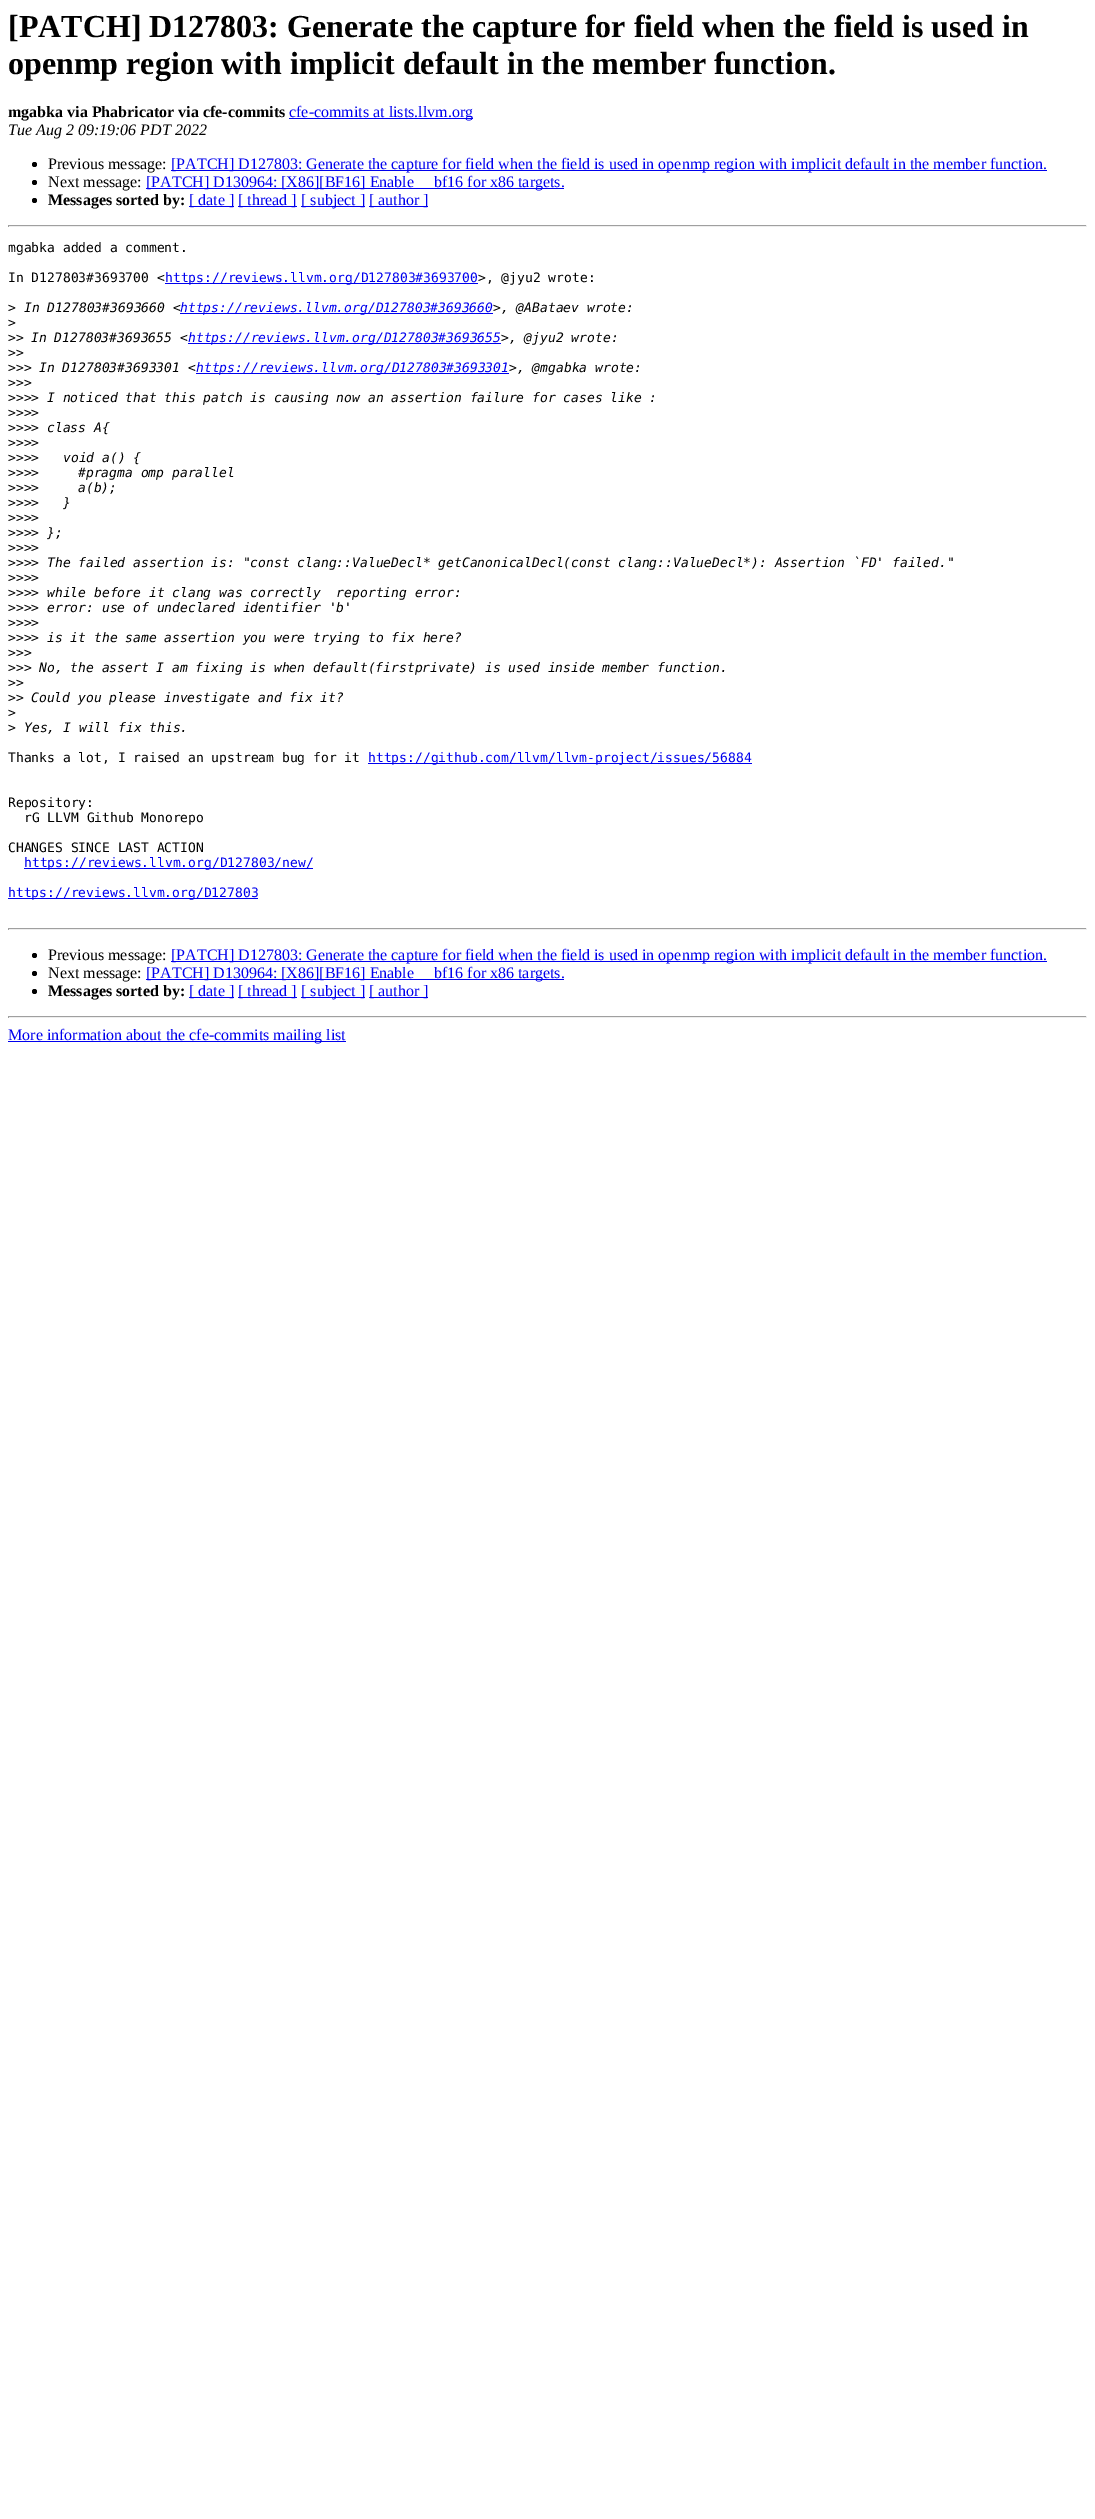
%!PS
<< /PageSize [1095 2519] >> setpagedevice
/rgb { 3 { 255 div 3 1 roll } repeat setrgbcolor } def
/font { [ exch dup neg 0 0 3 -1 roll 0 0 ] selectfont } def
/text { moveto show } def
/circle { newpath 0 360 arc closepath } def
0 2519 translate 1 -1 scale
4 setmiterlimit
255 255 255 rgb
0 0 1095 2519 rectfill
0 0 238 rgb
289 118 184 1 rectfill
0 0 0 rgb
34.5 164.5 2.5 circle fill
0 0 238 rgb
171 170 876 1 rectfill
0 0 0 rgb
34.5 182.5 2.5 circle fill
0 0 238 rgb
146 188 418 1 rectfill
0 0 0 rgb
34.5 200.5 2.5 circle fill
0 0 238 rgb
189 206 45 1 rectfill
238 206 59 1 rectfill
301 206 64 1 rectfill
369 206 59 1 rectfill
159 159 159 rgb
8 225 1079 1 rectfill
238 238 238 rgb
1086 225 1 2 rectfill
8 226 1079 1 rectfill
159 159 159 rgb
8 225 1 2 rectfill
0 0 238 rgb
165 283 313 1 rectfill
180 313 313 1 rectfill
188 343 313 1 rectfill
196 373 313 1 rectfill
368 763 384 1 rectfill
24 868 289 1 rectfill
8 898 250 1 rectfill
159 159 159 rgb
8 928 1079 1 rectfill
238 238 238 rgb
1086 928 1 2 rectfill
8 929 1079 1 rectfill
159 159 159 rgb
8 928 1 2 rectfill
0 0 0 rgb
34.5 955.5 2.5 circle fill
0 0 238 rgb
171 961 876 1 rectfill
0 0 0 rgb
34.5 973.5 2.5 circle fill
0 0 238 rgb
146 979 418 1 rectfill
0 0 0 rgb
34.5 991.5 2.5 circle fill
0 0 238 rgb
189 997 45 1 rectfill
238 997 59 1 rectfill
301 997 64 1 rectfill
369 997 59 1 rectfill
159 159 159 rgb
8 1016 1079 1 rectfill
238 238 238 rgb
1086 1016 1 2 rectfill
8 1017 1079 1 rectfill
159 159 159 rgb
8 1016 1 2 rectfill
0 0 238 rgb
8 1041 338 1 rectfill
/LiberationSerif-Bold 32 font
0 0 0 rgb
([PATCH] D127803: Generate the capture for field when the field is used in) 8 37 text
(openmp region with implicit default in the member function.) 8 74 text
/LiberationSerif-Bold 16 font
(mgabka via Phabricator via cfe-commits) 8 117 text
/LiberationSerif-Regular 16 font
0 0 238 rgb
(cfe-commits at lists.llvm.org) 289 117 text
/LiberationSerif-Italic 16 font
0 0 0 rgb
(Tue Aug 2 09:19:06 PDT 2022) 8 135 text
/LiberationSerif-Regular 16 font
(Previous message:) 48 169 text
0 0 238 rgb
([PATCH] D127803: Generate the capture for field when the field is used in openmp region with implicit default in the member function.) 171 169 text
0 0 0 rgb
(Next message:) 48 187 text
0 0 238 rgb
([PATCH] D130964: [X86][BF16] Enable __bf16 for x86 targets.) 146 187 text
/LiberationSerif-Bold 16 font
0 0 0 rgb
(Messages sorted by:) 48 205 text
/LiberationSerif-Regular 16 font
0 0 238 rgb
([ date ]) 189 205 text
([ thread ]) 238 205 text
([ subject ]) 301 205 text
([ author ]) 369 205 text
/DejaVuSansMono-Regular 13 font
0 0 0 rgb
(mgabka added a comment.) 8 252 text
(In D127803#3693700 <) 8 282 text
0 0 238 rgb
(https://reviews.llvm.org/D127803#3693700) 165 282 text
0 0 0 rgb
(>, @jyu2 wrote:) 478 282 text
(>) 8 312 text
/DejaVuSansMono-Italic 13 font
(In D127803#3693660 <) 24 312 text
0 0 238 rgb
(https://reviews.llvm.org/D127803#3693660) 180 312 text
0 0 0 rgb
(>, @ABataev wrote:) 493 312 text
/DejaVuSansMono-Regular 13 font
(>) 8 327 text
(>>) 8 342 text
/DejaVuSansMono-Italic 13 font
(In D127803#3693655 <) 31 342 text
0 0 238 rgb
(https://reviews.llvm.org/D127803#3693655) 188 342 text
0 0 0 rgb
(>, @jyu2 wrote:) 501 342 text
/DejaVuSansMono-Regular 13 font
(>>) 8 357 text
(>>>) 8 372 text
/DejaVuSansMono-Italic 13 font
(In D127803#3693301 <) 39 372 text
0 0 238 rgb
(https://reviews.llvm.org/D127803#3693301) 196 372 text
0 0 0 rgb
(>, @mgabka wrote:) 509 372 text
/DejaVuSansMono-Regular 13 font
(>>>) 8 387 text
(>>>>) 8 402 text
/DejaVuSansMono-Italic 13 font
(I noticed that this patch is causing now an assertion failure for cases like :) 47 402 text
/DejaVuSansMono-Regular 13 font
(>>>>) 8 417 text
(>>>>) 8 432 text
/DejaVuSansMono-Italic 13 font
(class A{) 47 432 text
/DejaVuSansMono-Regular 13 font
(>>>>) 8 447 text
(>>>>) 8 462 text
/DejaVuSansMono-Italic 13 font
(void a\(\) {) 63 462 text
/DejaVuSansMono-Regular 13 font
(>>>>) 8 477 text
/DejaVuSansMono-Italic 13 font
(#pragma omp parallel) 78 477 text
/DejaVuSansMono-Regular 13 font
(>>>>) 8 492 text
/DejaVuSansMono-Italic 13 font
(a\(b\);) 78 492 text
/DejaVuSansMono-Regular 13 font
(>>>>) 8 507 text
/DejaVuSansMono-Italic 13 font
(}) 63 507 text
/DejaVuSansMono-Regular 13 font
(>>>>) 8 522 text
(>>>>) 8 537 text
/DejaVuSansMono-Italic 13 font
(};) 47 537 text
/DejaVuSansMono-Regular 13 font
(>>>>) 8 552 text
(>>>>) 8 567 text
/DejaVuSansMono-Italic 13 font
(The failed assertion is: "const clang::ValueDecl* getCanonicalDecl\(const clang::ValueDecl*\): Assertion `FD' failed.") 47 567 text
/DejaVuSansMono-Regular 13 font
(>>>>) 8 582 text
(>>>>) 8 597 text
/DejaVuSansMono-Italic 13 font
(while before it clang was correctly  reporting error:) 47 597 text
/DejaVuSansMono-Regular 13 font
(>>>>) 8 612 text
/DejaVuSansMono-Italic 13 font
(error: use of undeclared identifier 'b') 47 612 text
/DejaVuSansMono-Regular 13 font
(>>>>) 8 627 text
(>>>>) 8 642 text
/DejaVuSansMono-Italic 13 font
(is it the same assertion you were trying to fix here?) 47 642 text
/DejaVuSansMono-Regular 13 font
(>>>) 8 657 text
(>>>) 8 672 text
/DejaVuSansMono-Italic 13 font
(No, the assert I am fixing is when default\(firstprivate\) is used inside member function.) 39 672 text
/DejaVuSansMono-Regular 13 font
(>>) 8 687 text
(>>) 8 702 text
/DejaVuSansMono-Italic 13 font
(Could you please investigate and fix it?) 31 702 text
/DejaVuSansMono-Regular 13 font
(>) 8 717 text
(>) 8 732 text
/DejaVuSansMono-Italic 13 font
(Yes, I will fix this.) 24 732 text
/DejaVuSansMono-Regular 13 font
(Thanks a lot, I raised an upstream bug for it) 8 762 text
0 0 238 rgb
(https://github.com/llvm/llvm-project/issues/56884) 368 762 text
0 0 0 rgb
(Repository:) 8 807 text
(rG LLVM Github Monorepo) 24 822 text
(CHANGES SINCE LAST ACTION) 8 852 text
0 0 238 rgb
(https://reviews.llvm.org/D127803/new/) 24 867 text
(https://reviews.llvm.org/D127803) 8 897 text
/LiberationSerif-Regular 16 font
0 0 0 rgb
(Previous message:) 48 960 text
0 0 238 rgb
([PATCH] D127803: Generate the capture for field when the field is used in openmp region with implicit default in the member function.) 171 960 text
0 0 0 rgb
(Next message:) 48 978 text
0 0 238 rgb
([PATCH] D130964: [X86][BF16] Enable __bf16 for x86 targets.) 146 978 text
/LiberationSerif-Bold 16 font
0 0 0 rgb
(Messages sorted by:) 48 996 text
/LiberationSerif-Regular 16 font
0 0 238 rgb
([ date ]) 189 996 text
([ thread ]) 238 996 text
([ subject ]) 301 996 text
([ author ]) 369 996 text
(More information about the cfe-commits mailing list) 8 1040 text
showpage
